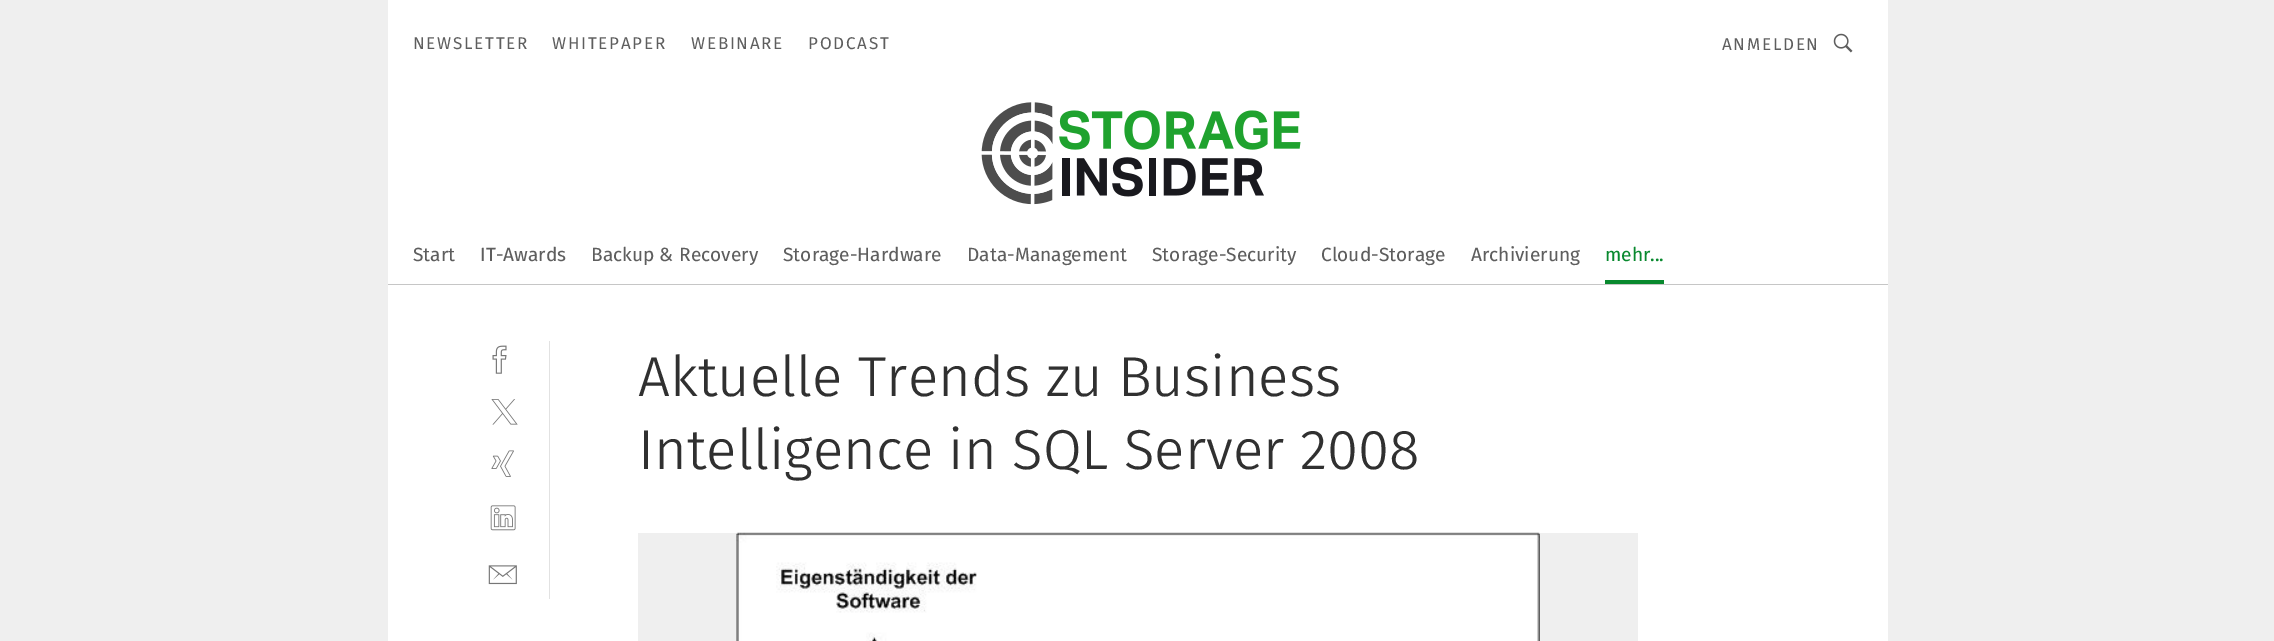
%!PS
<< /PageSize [2274 641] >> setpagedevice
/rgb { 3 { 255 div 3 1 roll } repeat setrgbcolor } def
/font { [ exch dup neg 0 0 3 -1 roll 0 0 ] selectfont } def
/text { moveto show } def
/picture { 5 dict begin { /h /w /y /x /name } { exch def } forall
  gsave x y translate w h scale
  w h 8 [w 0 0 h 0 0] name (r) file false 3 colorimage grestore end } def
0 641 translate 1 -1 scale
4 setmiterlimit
239 239 239 rgb
0 0 2274 641 rectfill
255 255 255 rgb
388 0 1500 641 rectfill
198 198 198 rgb
388 284 1500 1 rectfill
(img_01.rgb) 1833 33 20 20 picture
(img_02.rgb) 981 102 320 103 picture
8 137 46 rgb
1605 280 59 4 rectfill
226 226 226 rgb
549 341 1 258 rectfill
(img_03.rgb) 492 345 15 29 picture
(img_04.rgb) 491 399 27 26 picture
(img_05.rgb) 491 450 23 27 picture
(img_06.rgb) 490 505 26 26 picture
(img_07.rgb) 488 565 29 20 picture
239 239 239 rgb
638 533 1000 108 rectfill
(img_08.rgb) 736 532 804 109 picture
/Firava-Regular 17 font
94 94 94 rgb
413 49 moveto 1.75 0 (NEWSLETTER) ashow
552 49 moveto 1.75 0 (WHITEPAPER) ashow
691 49 moveto 1.75 0 (WEBINARE) ashow
808 49 moveto 1.75 0 (PODCAST) ashow
1722 50 moveto 1.75 0 (ANMELDEN) ashow
/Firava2-Regular 19.1 font
(Start) 413 261 text
(IT-Awards) 480 261 text
(Backup & Recovery) 591 261 text
(Storage-Hardware) 783 261 text
(Data-Management) 967 261 text
(Storage-Security) 1152 261 text
(Cloud-Storage) 1321 261 text
(Archivierung) 1471 261 text
8 137 46 rgb
(mehr...) 1605 261 text
/Firava-Light 56.25 font
48 48 48 rgb
(Aktuelle Trends zu Business) 638 396 text
(Intelligence in SQL Server 2008) 638 469 text
showpage
